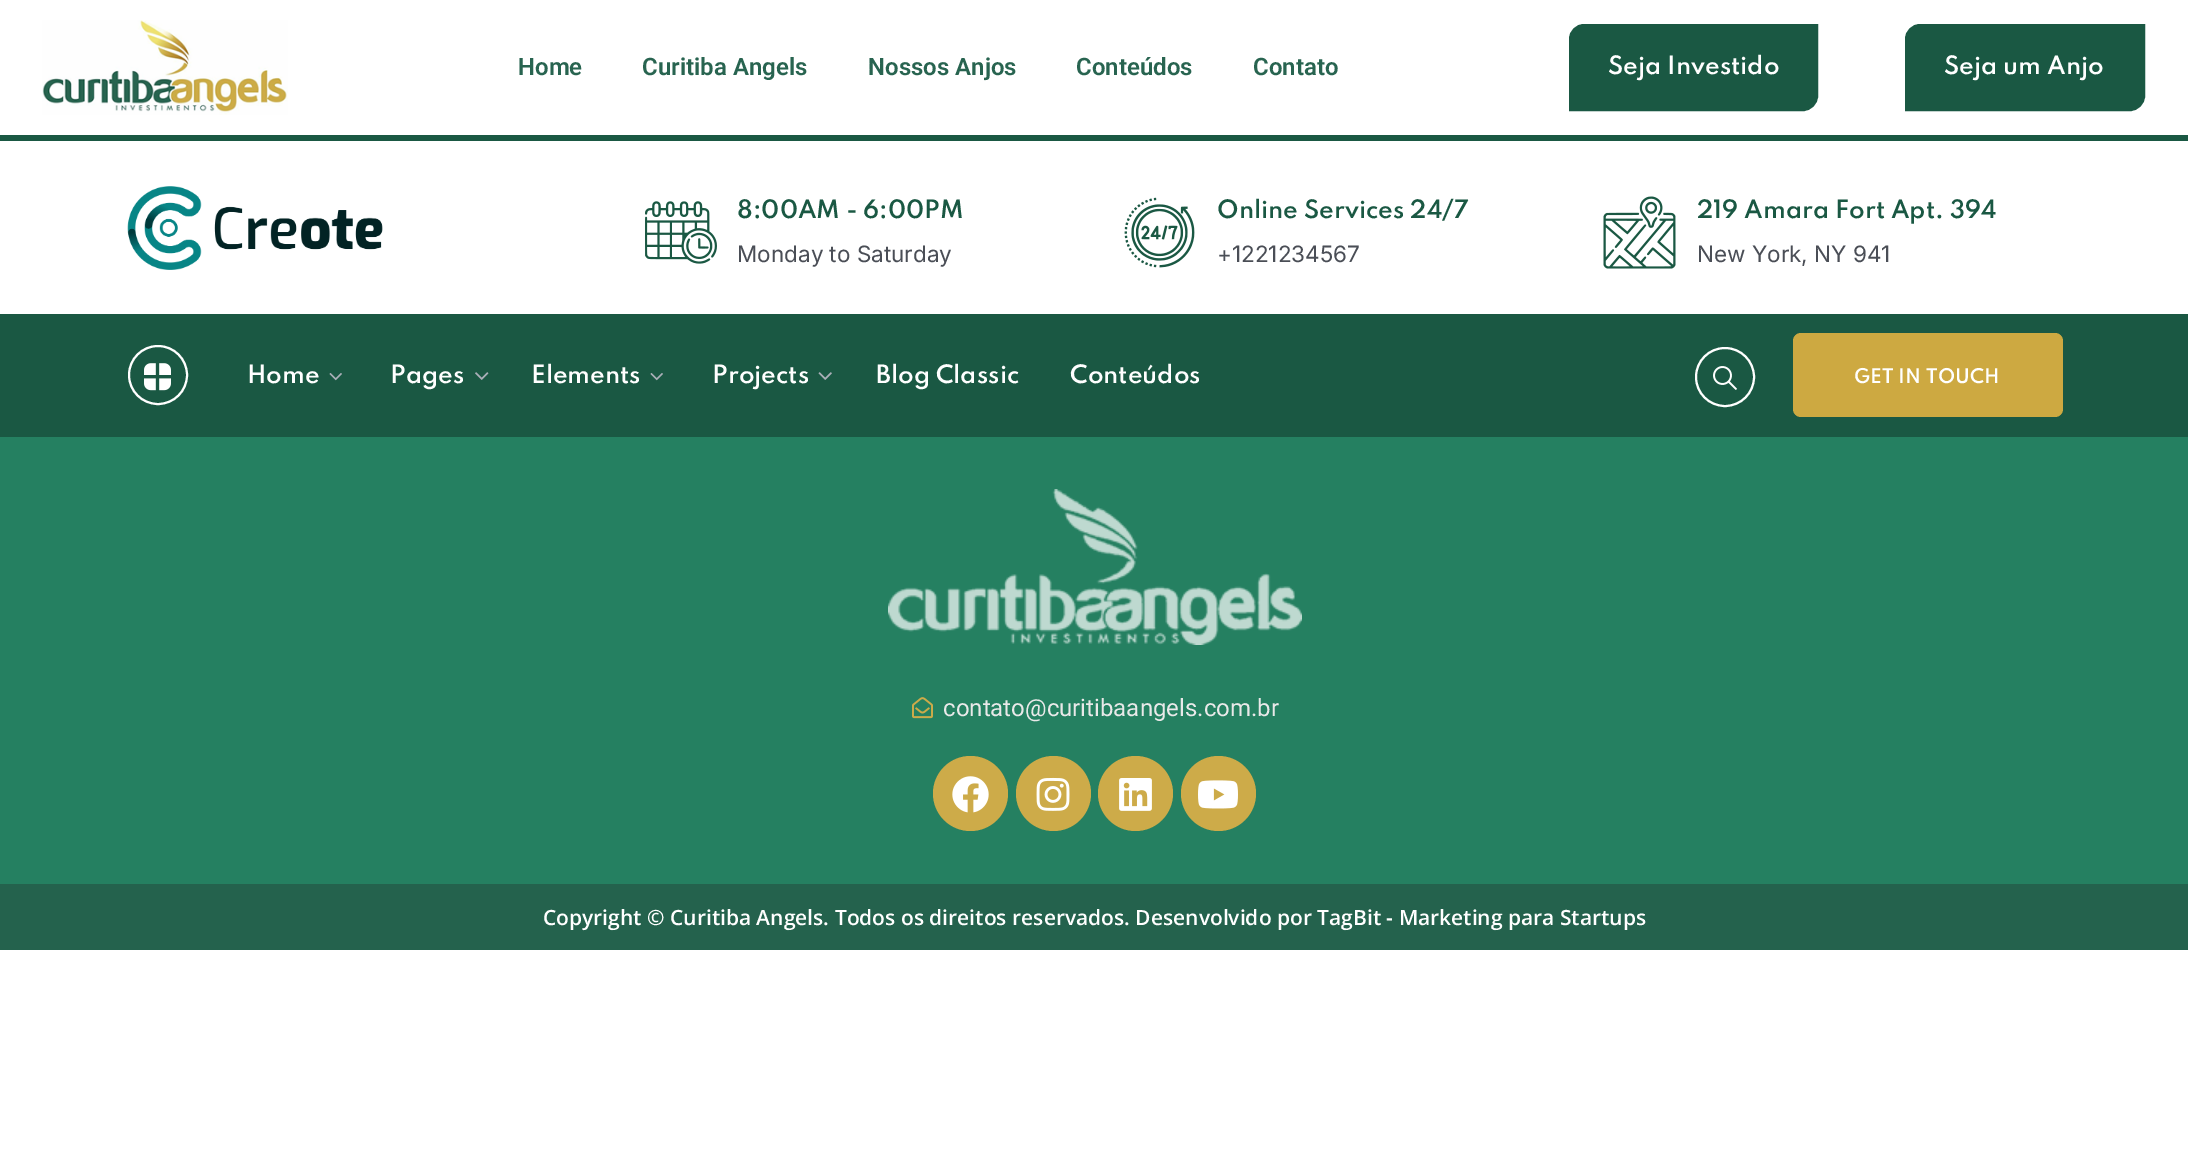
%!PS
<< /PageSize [2188 1168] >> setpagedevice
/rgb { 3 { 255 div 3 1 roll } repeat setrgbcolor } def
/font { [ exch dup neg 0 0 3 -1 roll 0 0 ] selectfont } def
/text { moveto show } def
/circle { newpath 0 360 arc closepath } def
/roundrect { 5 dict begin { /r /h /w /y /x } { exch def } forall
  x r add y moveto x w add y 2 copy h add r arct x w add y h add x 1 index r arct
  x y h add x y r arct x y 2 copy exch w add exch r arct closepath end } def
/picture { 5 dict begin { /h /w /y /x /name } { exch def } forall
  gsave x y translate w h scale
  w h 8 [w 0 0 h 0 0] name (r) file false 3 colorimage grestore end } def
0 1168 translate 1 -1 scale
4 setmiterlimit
255 255 255 rgb
0 0 2188 1168 rectfill
(img_01.rgb) 42 20 246 95 picture
26 88 67 rgb
1584 25 moveto 233 0 rlineto 0 71 rlineto 0 7.5 -6.5 14 -14 14 rcurveto -233 0 rlineto 0 -71 rlineto 0 -7.5 6.5 -14 14 -14 rcurveto closepath gsave fill grestore
2 setlinewidth
stroke
1920 25 moveto 224 0 rlineto 0 71 rlineto 0 7.5 -6.5 14 -14 14 rcurveto -224 0 rlineto 0 -71 rlineto 0 -7.5 6.5 -14 14 -14 rcurveto closepath gsave fill grestore
stroke
0 135 2188 6 rectfill
(img_02.rgb) 127 186 256 84 picture
(img_03.rgb) 645 201 72 63 picture
(img_04.rgb) 1124 197 71 71 picture
(img_05.rgb) 1603 196 73 73 picture
0 314 2188 123 rectfill
255 255 255 rgb
158 375 29 circle stroke
(img_06.rgb) 144 363 27 28 picture
(img_07.rgb) 329 373 13 8 picture
(img_08.rgb) 475 372 14 8 picture
(img_07.rgb) 650 373 13 8 picture
(img_09.rgb) 818 372 14 8 picture
1725 377 29 circle stroke
(img_10.rgb) 1713 366 24 24 picture
205 169 65 rgb
1793 333 270 84 8 roundrect fill
37 128 97 rgb
0 437 2188 447 rectfill
(img_11.rgb) 888 489 414 156 picture
(img_12.rgb) 912 697 21 22 picture
205 171 73 rgb
970.5 793.5 37.5 circle fill
(img_13.rgb) 952 776 37 37 picture
1053.5 793.5 37.5 circle fill
(img_14.rgb) 1036 777 34 34 picture
1135.5 793.5 37.5 circle fill
(img_15.rgb) 1119 778 33 33 picture
1218.5 793.5 37.5 circle fill
(img_16.rgb) 1198 780 40 29 picture
36 98 77 rgb
0 884 2188 66 rectfill
/Roboto-SemiBold 24 font
40 100 80 rgb
(Home) 518 75 text
(Curitiba Angels) 642 75 text
(Nossos Anjos) 868 75 text
(Conteúdos) 1076 75 text
(Contato) 1253 75 text
/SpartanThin-SemiBold 22.5 font
255 255 255 rgb
(Seja Investido) 1608 74 text
(Seja um Anjo) 1944 74 text
26 88 67 rgb
(8:00AM - 6:00PM) 737 218 text
/Inter-Regular 22.5 font
74 78 86 rgb
(Monday to Saturday) 737 262 text
/SpartanThin-SemiBold 22.5 font
26 88 67 rgb
(Online Services 24/7) 1217 218 text
/Inter-Regular 22.5 font
74 78 86 rgb
(+1221234567) 1217 262 text
/SpartanThin-SemiBold 22.5 font
26 88 67 rgb
(219 Amara Fort Apt. 394) 1697 218 text
/Inter-Regular 22.5 font
74 78 86 rgb
(New York, NY 941) 1697 262 text
/SpartanThin-SemiBold 22.5 font
255 255 255 rgb
(Home) 247 383 text
(Pages) 390 383 text
(Elements) 531 383 text
(Projects) 712 383 text
(Blog Classic) 876 383 text
(Conteúdos) 1070 383 text
/SpartanThin-SemiBold 18 font
(GET IN TOUCH) 1854 383 text
/Roboto-Regular 24 font
233 233 233 rgb
(contato@curitibaangels.com.br) 943 716 text
/OpenSans-SemiBold 21 font
255 255 255 rgb
(Copyright © Curitiba Angels. Todos os direitos reservados. Desenvolvido por TagBit - Marketing para Startups) 543 925 text
showpage
